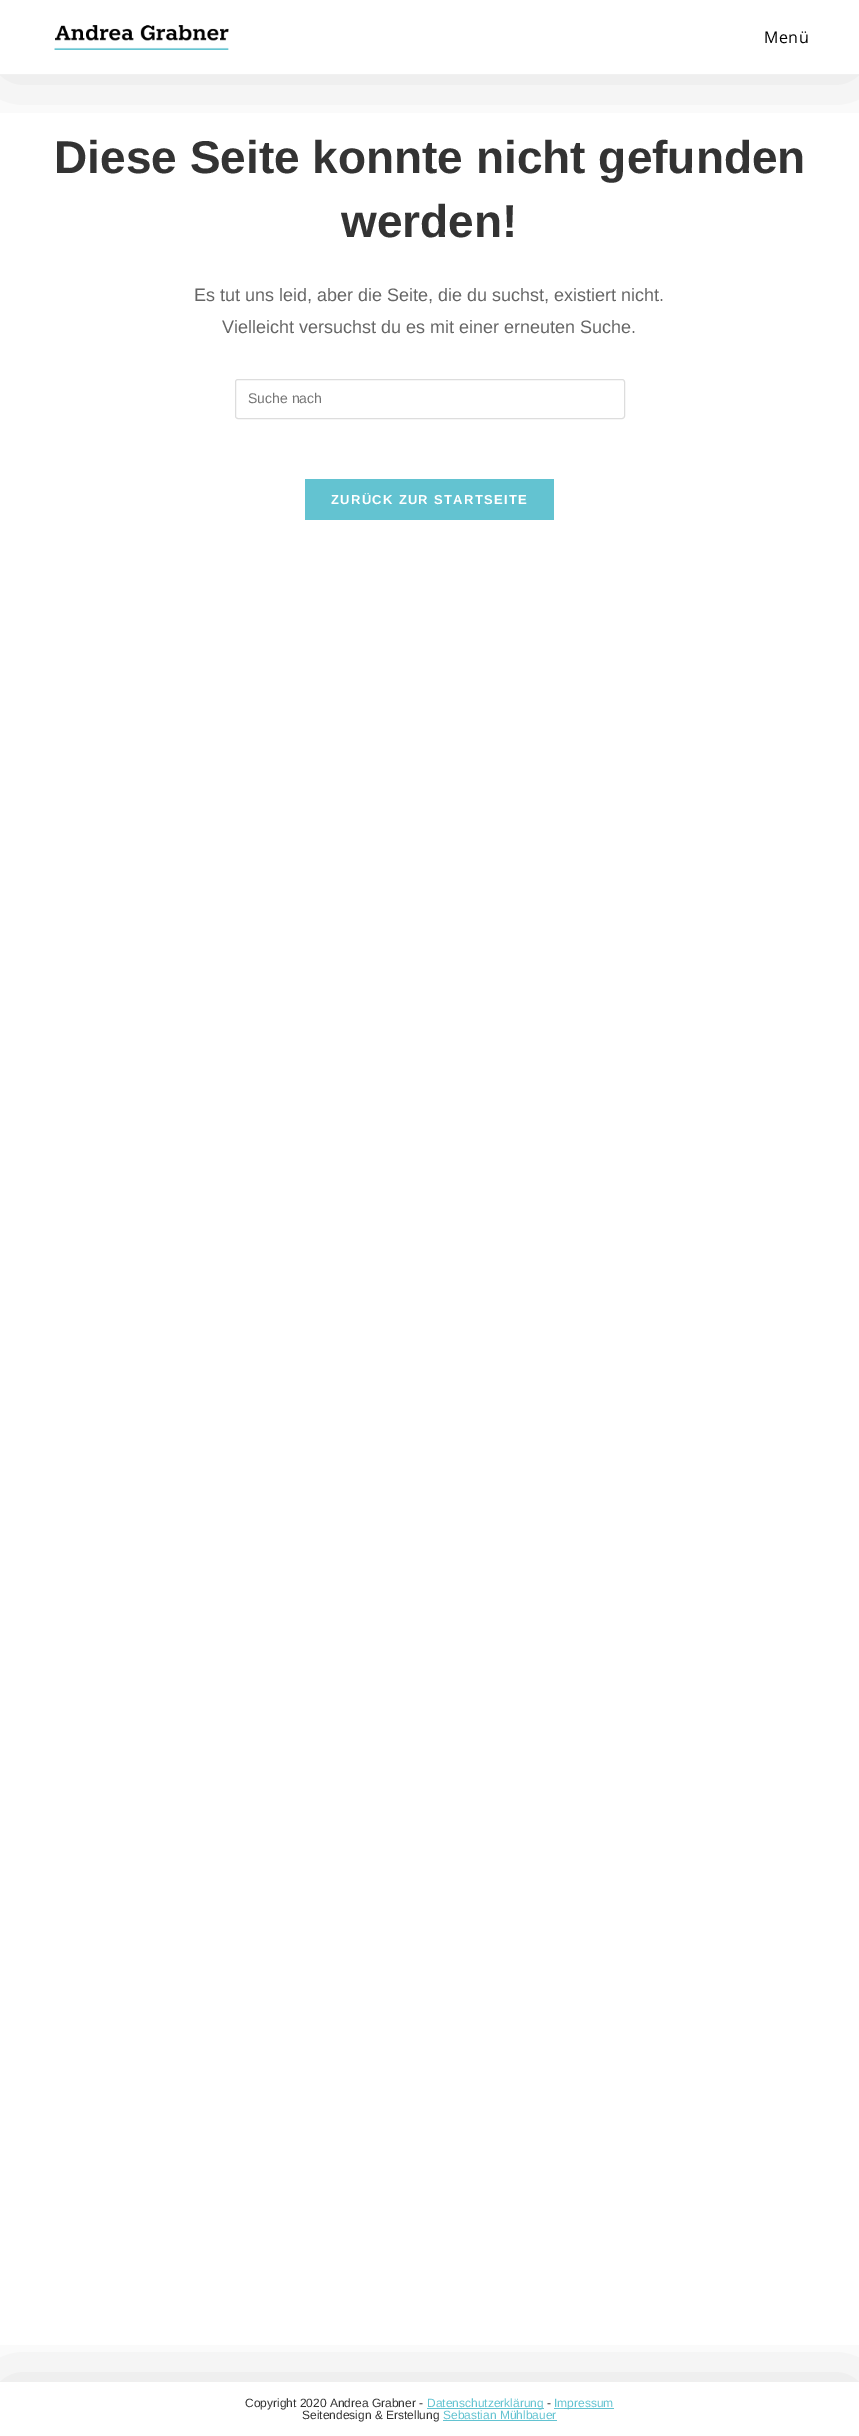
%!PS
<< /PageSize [859 2436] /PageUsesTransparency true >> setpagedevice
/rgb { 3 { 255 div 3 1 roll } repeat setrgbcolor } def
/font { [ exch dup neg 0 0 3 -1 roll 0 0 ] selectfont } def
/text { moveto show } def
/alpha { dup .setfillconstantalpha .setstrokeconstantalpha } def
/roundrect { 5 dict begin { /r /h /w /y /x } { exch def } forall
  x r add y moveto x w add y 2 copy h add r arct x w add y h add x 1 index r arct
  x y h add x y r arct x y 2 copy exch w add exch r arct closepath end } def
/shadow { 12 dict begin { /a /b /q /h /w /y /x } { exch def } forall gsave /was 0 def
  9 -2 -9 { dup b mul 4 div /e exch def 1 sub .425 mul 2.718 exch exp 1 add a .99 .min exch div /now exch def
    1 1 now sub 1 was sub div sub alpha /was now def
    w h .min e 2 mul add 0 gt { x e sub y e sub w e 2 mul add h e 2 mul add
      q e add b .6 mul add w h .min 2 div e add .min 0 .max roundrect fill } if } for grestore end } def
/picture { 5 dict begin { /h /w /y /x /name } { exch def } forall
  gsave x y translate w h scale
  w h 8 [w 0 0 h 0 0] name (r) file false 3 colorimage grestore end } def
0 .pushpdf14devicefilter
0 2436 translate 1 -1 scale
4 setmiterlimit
255 255 255 rgb
0 0 859 2436 rectfill
gsave
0 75 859 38 rectclip
0 0 0 rgb
0 0 859 75 0 40 0.12 shadow
grestore
241 241 241 rgb
0 74 859 1 rectfill
(img_01.rgb) 54 25 175 25 picture
221 221 221 rgb
235.5 379.5 389 39 2.5 roundrect stroke
99 195 209 rgb
305 479 249 41 rectfill
gsave
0 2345 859 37 rectclip
0 0 0 rgb
0 2382 859 54 0 40 0.12 shadow
grestore
427 2408 117 1 rectfill
554 2408 60 1 rectfill
443 2420 114 1 rectfill
/OpenSans-Regular 16 font
2 2 2 rgb
764 43 moveto 0.5 0 (Menü) ashow
/LiberationSans-Bold 46 font
51 51 51 rgb
(Diese Seite konnte nicht gefunden) 54 173 text
(werden!) 341 237 text
/LiberationSans-Regular 18 font
102 102 102 rgb
(Es tut uns leid, aber die Seite, die du suchst, existiert nicht.) 194 301 text
(Vielleicht versuchst du es mit einer erneuten Suche.) 222 333 text
/LiberationSans-Regular 14 font
117 117 117 rgb
(Suche nach) 248 403 text
/LiberationSans-Bold 13 font
255 255 255 rgb
331 504 moveto 1.3 0 (ZURÜCK ZUR STARTSEITE) ashow
/LiberationSans-Regular 12 font
51 51 51 rgb
(Copyright 2020 Andrea Grabner -) 245 2407 text
99 195 209 rgb
(Datenschutzerklärung) 427 2407 text
51 51 51 rgb
(-) 547 2407 text
99 195 209 rgb
(Impressum) 554 2407 text
51 51 51 rgb
(Seitendesign & Erstellung) 302 2419 text
99 195 209 rgb
(Sebastian Mühlbauer) 443 2419 text
.poppdf14devicefilter showpage
